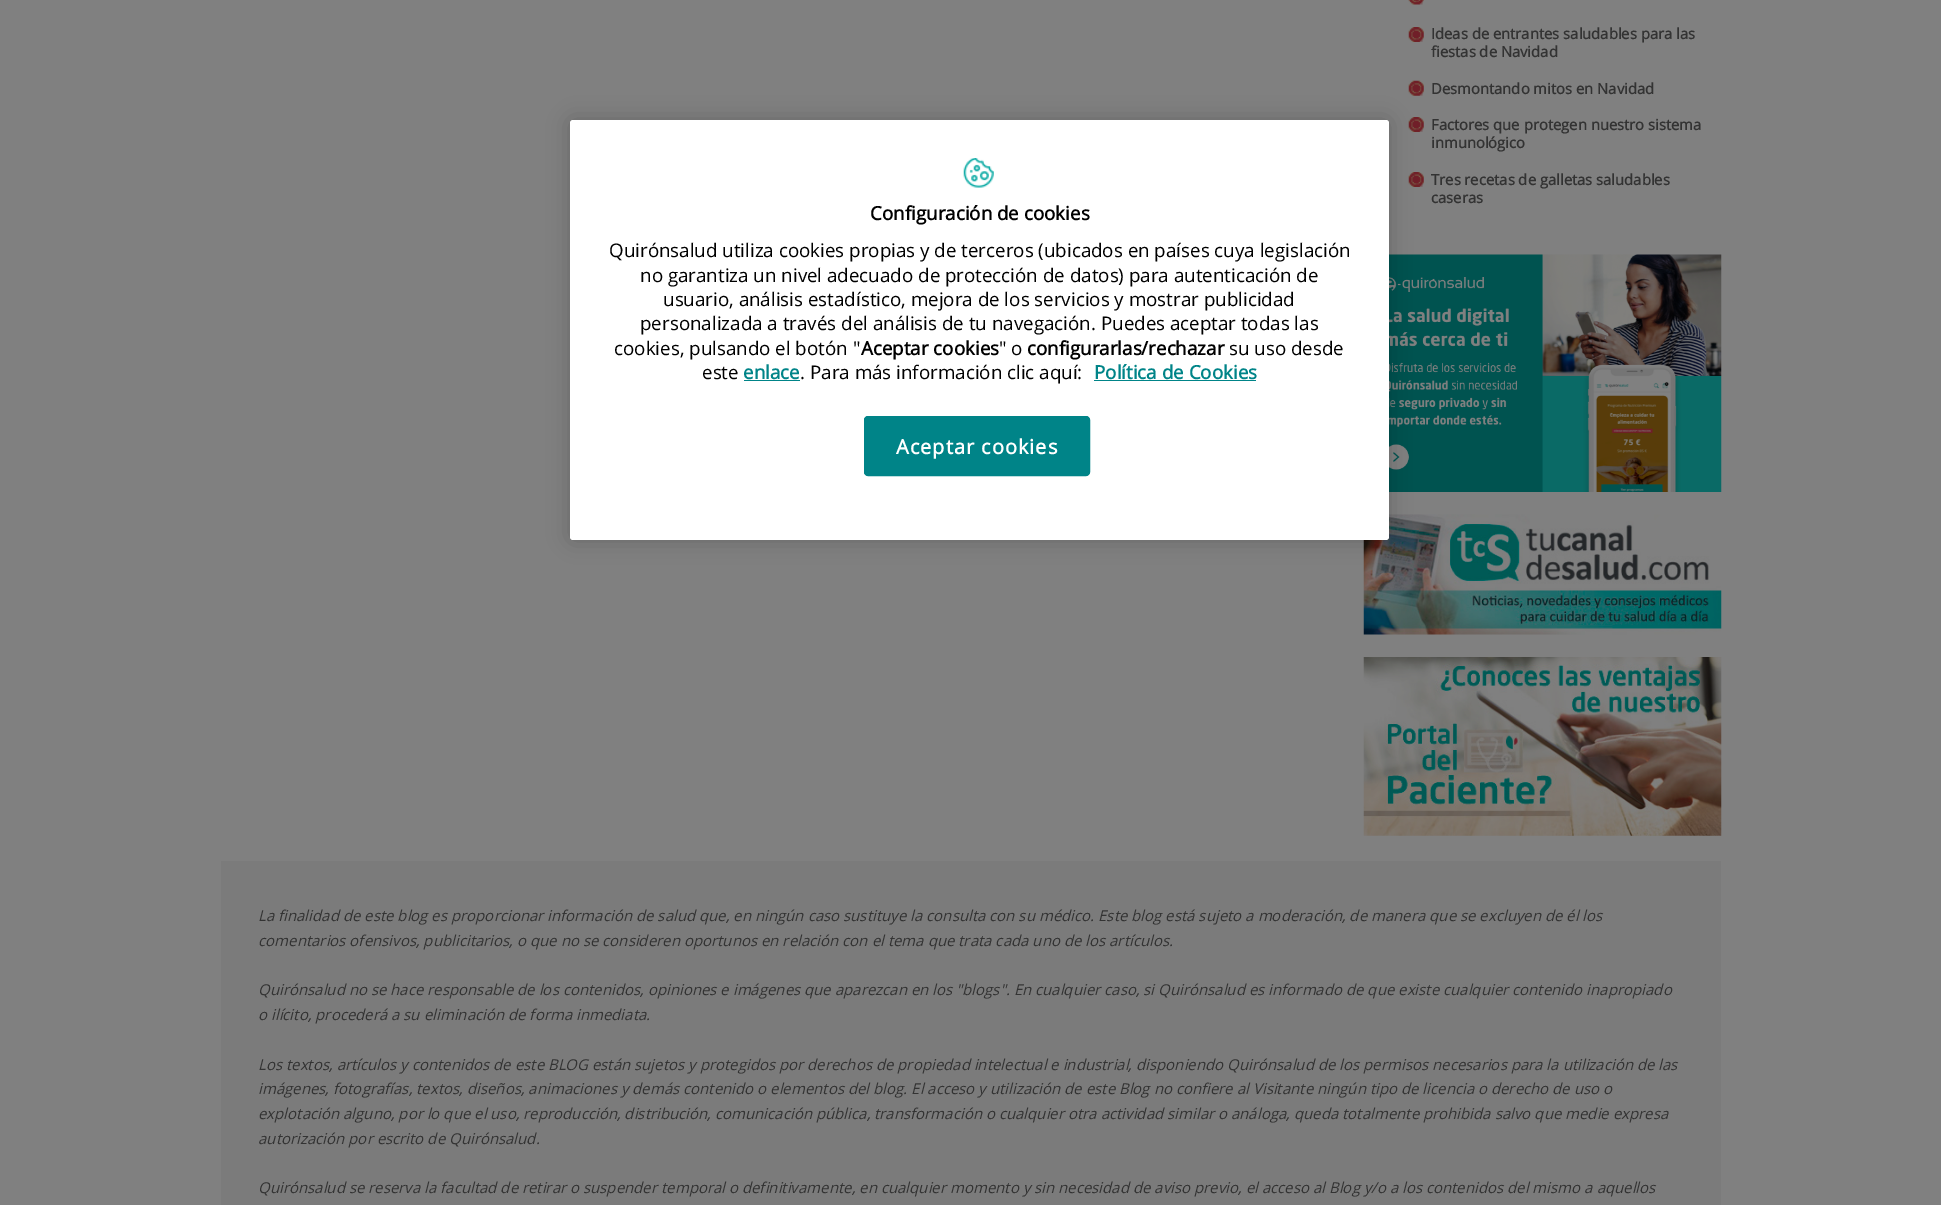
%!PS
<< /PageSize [1941 1205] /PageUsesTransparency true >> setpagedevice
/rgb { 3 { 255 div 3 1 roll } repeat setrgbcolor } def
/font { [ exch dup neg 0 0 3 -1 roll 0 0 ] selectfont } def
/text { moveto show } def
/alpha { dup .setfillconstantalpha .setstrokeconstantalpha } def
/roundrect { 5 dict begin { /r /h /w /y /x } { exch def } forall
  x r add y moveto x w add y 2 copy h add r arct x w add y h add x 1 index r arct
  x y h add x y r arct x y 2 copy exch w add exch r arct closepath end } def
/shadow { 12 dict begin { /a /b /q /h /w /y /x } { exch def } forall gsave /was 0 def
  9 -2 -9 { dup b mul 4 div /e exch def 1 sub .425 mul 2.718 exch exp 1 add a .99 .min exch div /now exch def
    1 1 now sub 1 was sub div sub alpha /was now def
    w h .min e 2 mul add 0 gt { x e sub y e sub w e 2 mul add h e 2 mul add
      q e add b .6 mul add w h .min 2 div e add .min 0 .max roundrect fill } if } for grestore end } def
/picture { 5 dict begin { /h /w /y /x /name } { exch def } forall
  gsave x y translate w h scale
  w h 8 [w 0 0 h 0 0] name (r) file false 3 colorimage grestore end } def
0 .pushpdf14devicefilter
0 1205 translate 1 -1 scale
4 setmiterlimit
128 128 128 rgb
0 0 1941 1205 rectfill
(img_01.rgb) 1408 0 16 5 picture
(img_02.rgb) 1408 27 16 15 picture
(img_03.rgb) 1408 80 16 16 picture
(img_02.rgb) 1408 117 16 15 picture
(img_02.rgb) 1408 172 16 15 picture
(img_04.rgb) 1389 254 333 238 picture
(img_05.rgb) 1363 514 359 121 picture
(img_06.rgb) 1363 657 359 179 picture
123 123 123 rgb
221 861 1500 344 rectfill
0 0 0 rgb
570 120 819 420 3 11 0.2 shadow
255 255 255 rgb
570 120 819 420 3 roundrect fill
(img_07.rgb) 963 158 31 30 picture
0 132 136 rgb
744 380 56 1 rectfill
1094 380 162 1 rectfill
864.5 416.5 225 59 3.5 roundrect gsave fill grestore
stroke
/OpenSans-Bold 14.8 font
51 51 51 rgb
(Ideas de entrantes saludables para las) 1431 39 text
(fiestas de Navidad) 1431 57 text
(Desmontando mitos en Navidad) 1431 94 text
(Factores que protegen nuestro sistema) 1431 130 text
(inmunológico) 1431 148 text
(Tres recetas de galletas saludables) 1431 185 text
(caseras) 1431 203 text
/OpenSans-Italic 15 font
(La finalidad de este blog es proporcionar información de salud que, en ningún caso sustituye la consulta con su médico. Este blog está sujeto a moderación, de manera que se excluyen de él los) 258 921 text
(comentarios ofensivos, publicitarios, o que no se consideren oportunos en relación con el tema que trata cada uno de los artículos.) 258 946 text
(Quirónsalud no se hace responsable de los contenidos, opiniones e imágenes que aparezcan en los "blogs". En cualquier caso, si Quirónsalud es informado de que existe cualquier contenido inapropiado) 258 995 text
(o ilícito, procederá a su eliminación de forma inmediata.) 258 1020 text
(Los textos, artículos y contenidos de este BLOG están sujetos y protegidos por derechos de propiedad intelectual e industrial, disponiendo Quirónsalud de los permisos necesarios para la utilización de las) 258 1070 text
(imágenes, fotografías, textos, diseños, animaciones y demás contenido o elementos del blog. El acceso y utilización de este Blog no confiere al Visitante ningún tipo de licencia o derecho de uso o) 258 1094 text
(explotación alguno, por lo que el uso, reproducción, distribución, comunicación pública, transformación o cualquier otra actividad similar o análoga, queda totalmente prohibida salvo que medie expresa) 258 1119 text
(autorización por escrito de Quirónsalud.) 258 1144 text
(Quirónsalud se reserva la facultad de retirar o suspender temporal o definitivamente, en cualquier momento y sin necesidad de aviso previo, el acceso al Blog y/o a los contenidos del mismo a aquellos) 258 1193 text
/OpenSans-Bold 18.75 font
0 0 0 rgb
(Configuración de cookies) 870 220 text
/OpenSans-Regular 18.75 font
(Quirónsalud utiliza cookies propias y de terceros \(ubicados en países cuya legislación) 609 257 text
(no garantiza un nivel adecuado de protección de datos\) para autenticación de) 640 282 text
(usuario, análisis estadístico, mejora de los servicios y mostrar publicidad) 663 306 text
(personalizada a través del análisis de tu navegación. Puedes aceptar todas las) 640 330 text
(cookies, pulsando el botón ") 614 355 text
/OpenSans-Bold 18.75 font
(Aceptar cookies) 861 355 text
/OpenSans-Regular 18.75 font
(" o) 999 355 text
/OpenSans-Bold 18.75 font
(configurarlas/rechazar) 1027 355 text
/OpenSans-Regular 18.75 font
(su uso desde) 1229 355 text
(este) 702 379 text
/OpenSans-Bold 18.75 font
0 132 136 rgb
(enlace) 743 379 text
/OpenSans-Regular 18.75 font
0 0 0 rgb
(. Para más información clic aquí:) 800 379 text
/OpenSans-Bold 18.75 font
0 132 136 rgb
(Política de Cookies) 1094 379 text
/OpenSans-Bold 20 font
255 255 255 rgb
896 454 moveto 1 0 (Aceptar cookies) ashow
.poppdf14devicefilter showpage
